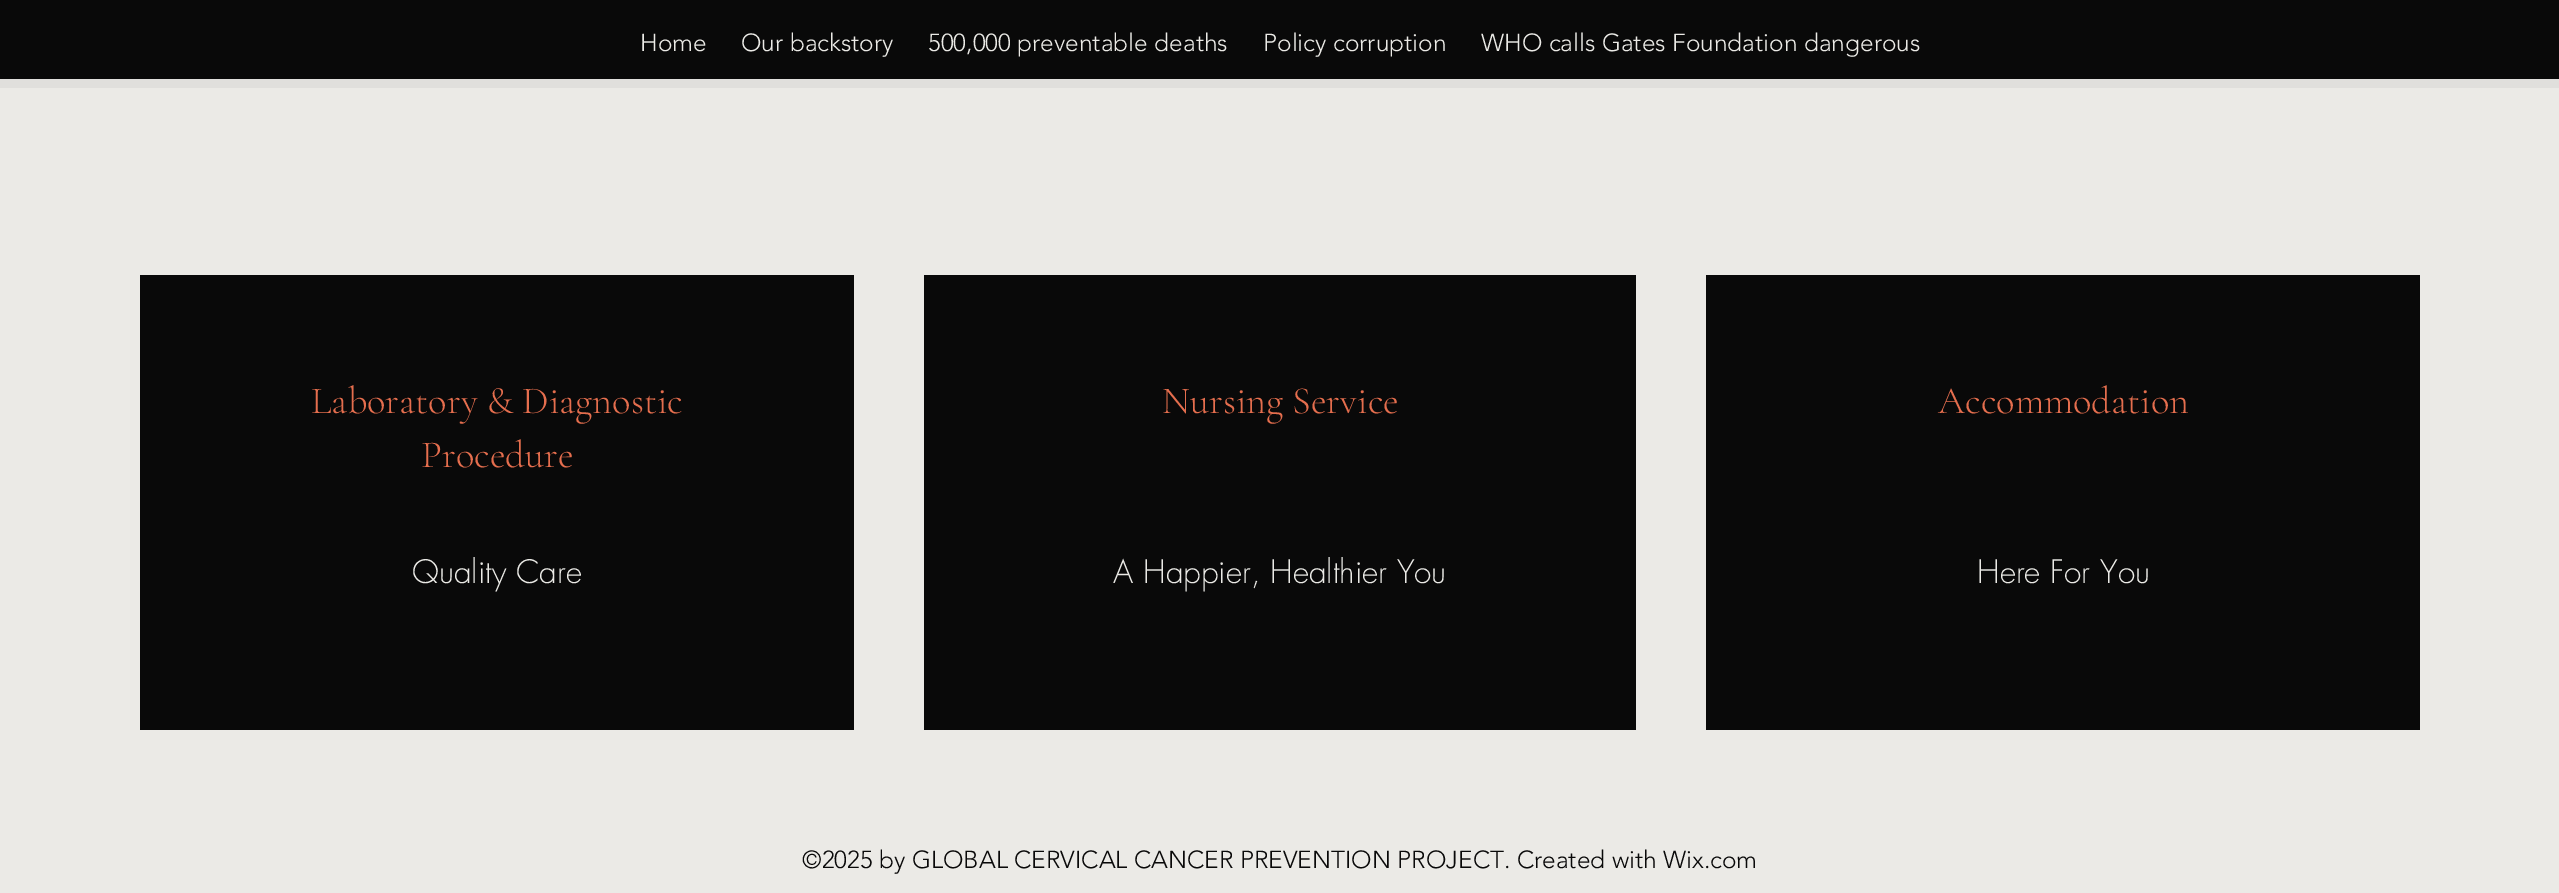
%!PS
<< /PageSize [2559 893] >> setpagedevice
/rgb { 3 { 255 div 3 1 roll } repeat setrgbcolor } def
/font { [ exch dup neg 0 0 3 -1 roll 0 0 ] selectfont } def
/text { moveto show } def
0 893 translate 1 -1 scale
4 setmiterlimit
235 234 230 rgb
0 0 2559 893 rectfill
9 9 9 rgb
0 0 2559 79 rectfill
224 223 220 rgb
0 79 2559 9 rectfill
9 9 9 rgb
140 275 714 455 rectfill
924 275 712 455 rectfill
1706 275 714 455 rectfill
/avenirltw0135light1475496-Light 24.5 font
235 234 230 rgb
(Home) 640 51 text
(Our backstory) 741 51 text
(500,000 preventable deaths) 928 51 text
(Policy corruption) 1263 51 text
(WHO calls Gates Foundation dangerous) 1481 51 text
/CormorantGaramond-Light 38.5 font
229 110 78 rgb
(Laboratory & Diagnostic) 311 413 text
(Procedure) 421 467 text
/futura-Light 31.5 font
235 234 230 rgb
(Quality Care) 412 583 text
/CormorantGaramond-Light 38.5 font
229 110 78 rgb
(Nursing Service) 1162 413 text
/futura-Light 31.5 font
235 234 230 rgb
(A Happier, Healthier You) 1113 583 text
/CormorantGaramond-Light 38.5 font
229 110 78 rgb
(Accommodation) 1938 413 text
/futura-Light 31.5 font
235 234 230 rgb
(Here For You) 1977 583 text
/avenirltw0135light1475496-Light 24.5 font
9 9 9 rgb
(©2025 by GLOBAL CERVICAL CANCER PREVENTION PROJECT. Created with Wix.com) 802 868 text
showpage
